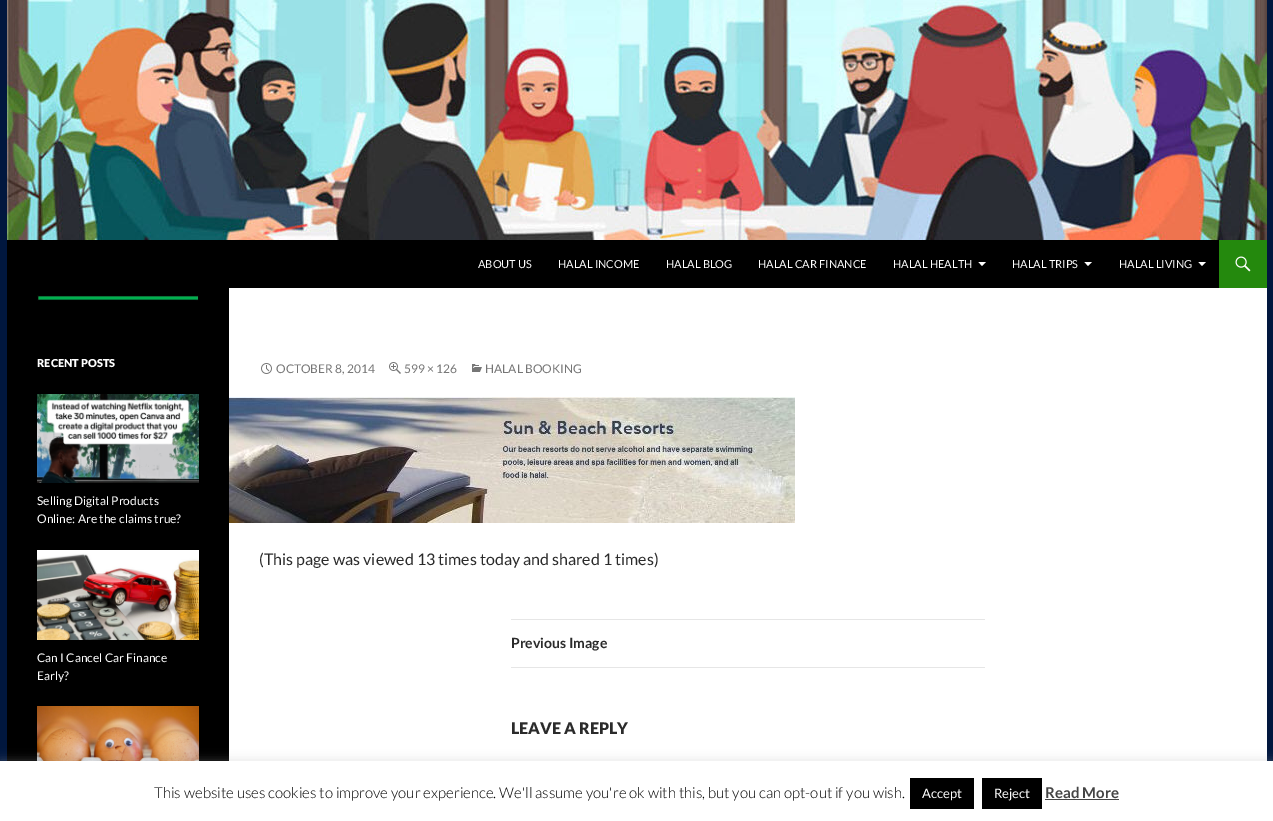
%!PS
<< /PageSize [1273 821] /PageUsesTransparency true >> setpagedevice
/rgb { 3 { 255 div 3 1 roll } repeat setrgbcolor } def
/font { [ exch dup neg 0 0 3 -1 roll 0 0 ] selectfont } def
/text { moveto show } def
/alpha { dup .setfillconstantalpha .setstrokeconstantalpha } def
/roundrect { 5 dict begin { /r /h /w /y /x } { exch def } forall
  x r add y moveto x w add y 2 copy h add r arct x w add y h add x 1 index r arct
  x y h add x y r arct x y 2 copy exch w add exch r arct closepath end } def
/shadow { 12 dict begin { /a /b /q /h /w /y /x } { exch def } forall gsave /was 0 def
  9 -2 -9 { dup b mul 4 div /e exch def 1 sub .425 mul 2.718 exch exp 1 add a .99 .min exch div /now exch def
    1 1 now sub 1 was sub div sub alpha /was now def
    w h .min e 2 mul add 0 gt { x e sub y e sub w e 2 mul add h e 2 mul add
      q e add b .6 mul add w h .min 2 div e add .min 0 .max roundrect fill } if } for grestore end } def
/picture { 5 dict begin { /h /w /y /x /name } { exch def } forall
  gsave x y translate w h scale
  w h 8 [w 0 0 h 0 0] name (r) file false 3 colorimage grestore end } def
0 .pushpdf14devicefilter
0 821 translate 1 -1 scale
4 setmiterlimit
1 23 62 rgb
0 0 1273 821 rectfill
255 255 255 rgb
229 288 1038 473 rectfill
(img_01.rgb) 7 0 1260 240 picture
0 0 0 rgb
7 240 1212 48 rectfill
255 255 255 rgb
978.5 262 moveto 3.5 4 rlineto 4 -4 rlineto closepath fill
1084.5 262 moveto 3.5 4 rlineto 4 -4 rlineto closepath fill
1198.5 262 moveto 3.5 4 rlineto 4 -4 rlineto closepath fill
36 137 13 rgb
1219 240 48 48 rectfill
(img_02.rgb) 1235 256 16 16 picture
0 0 0 rgb
7 288 222 473 rectfill
(img_03.rgb) 37 295 162 6 picture
(img_04.rgb) 37 394 162 89 picture
(img_05.rgb) 37 550 162 90 picture
(img_06.rgb) 37 706 162 55 picture
(img_07.rgb) 261 363 11 11 picture
(img_08.rgb) 389 362 12 12 picture
(img_09.rgb) 472 364 10 8 picture
(img_10.rgb) 229 397 566 126 picture
230 230 230 rgb
511 619 474 1 rectfill
511 667 474 1 rectfill
172 171 171 rgb
0 760 1273 60 0 5 0.3 shadow
255 255 255 rgb
0 761 1273 60 rectfill
0 0 0 rgb
910 778 64 31 rectfill
982 778 60 31 rectfill
68 68 68 rgb
1045 799 74 1 rectfill
/Lato-Regular 11 font
255 255 255 rgb
(ABOUT US) 478 268 text
(HALAL INCOME) 558 268 text
(HALAL BLOG) 666 268 text
(HALAL CAR FINANCE) 758 268 text
(HALAL HEALTH) 893 268 text
(HALAL TRIPS) 1012 268 text
(HALAL LIVING) 1119 268 text
/Lato-Black 11 font
(RECENT POSTS) 37 367 text
/Lato-Regular 12 font
(Selling Digital Products) 37 505 text
(Online: Are the claims true?) 37 523 text
(Can I Cancel Car Finance) 37 662 text
(Early?) 37 680 text
118 118 118 rgb
(OCTOBER 8, 2014) 276 373 text
(599 × 126) 404 373 text
(HALAL BOOKING) 485 373 text
/Lato-Regular 16 font
43 43 43 rgb
(\(This page was viewed 13 times today and shared 1 times\)) 259 565 text
/Lato-Bold 14 font
(Previous Image) 511 648 text
/Lato-Black 16 font
(LEAVE A REPLY) 511 734 text
/Lato-Light 15 font
0 0 0 rgb
(This website uses cookies to improve your experience. We'll assume you're ok with this, but you can opt-out if you wish.) 154 798 text
/Lato-Regular 13 font
255 255 255 rgb
(Accept) 922 798 text
(Reject) 994 798 text
/Lato-Bold 15 font
68 68 68 rgb
(Read More) 1045 798 text
.poppdf14devicefilter showpage
